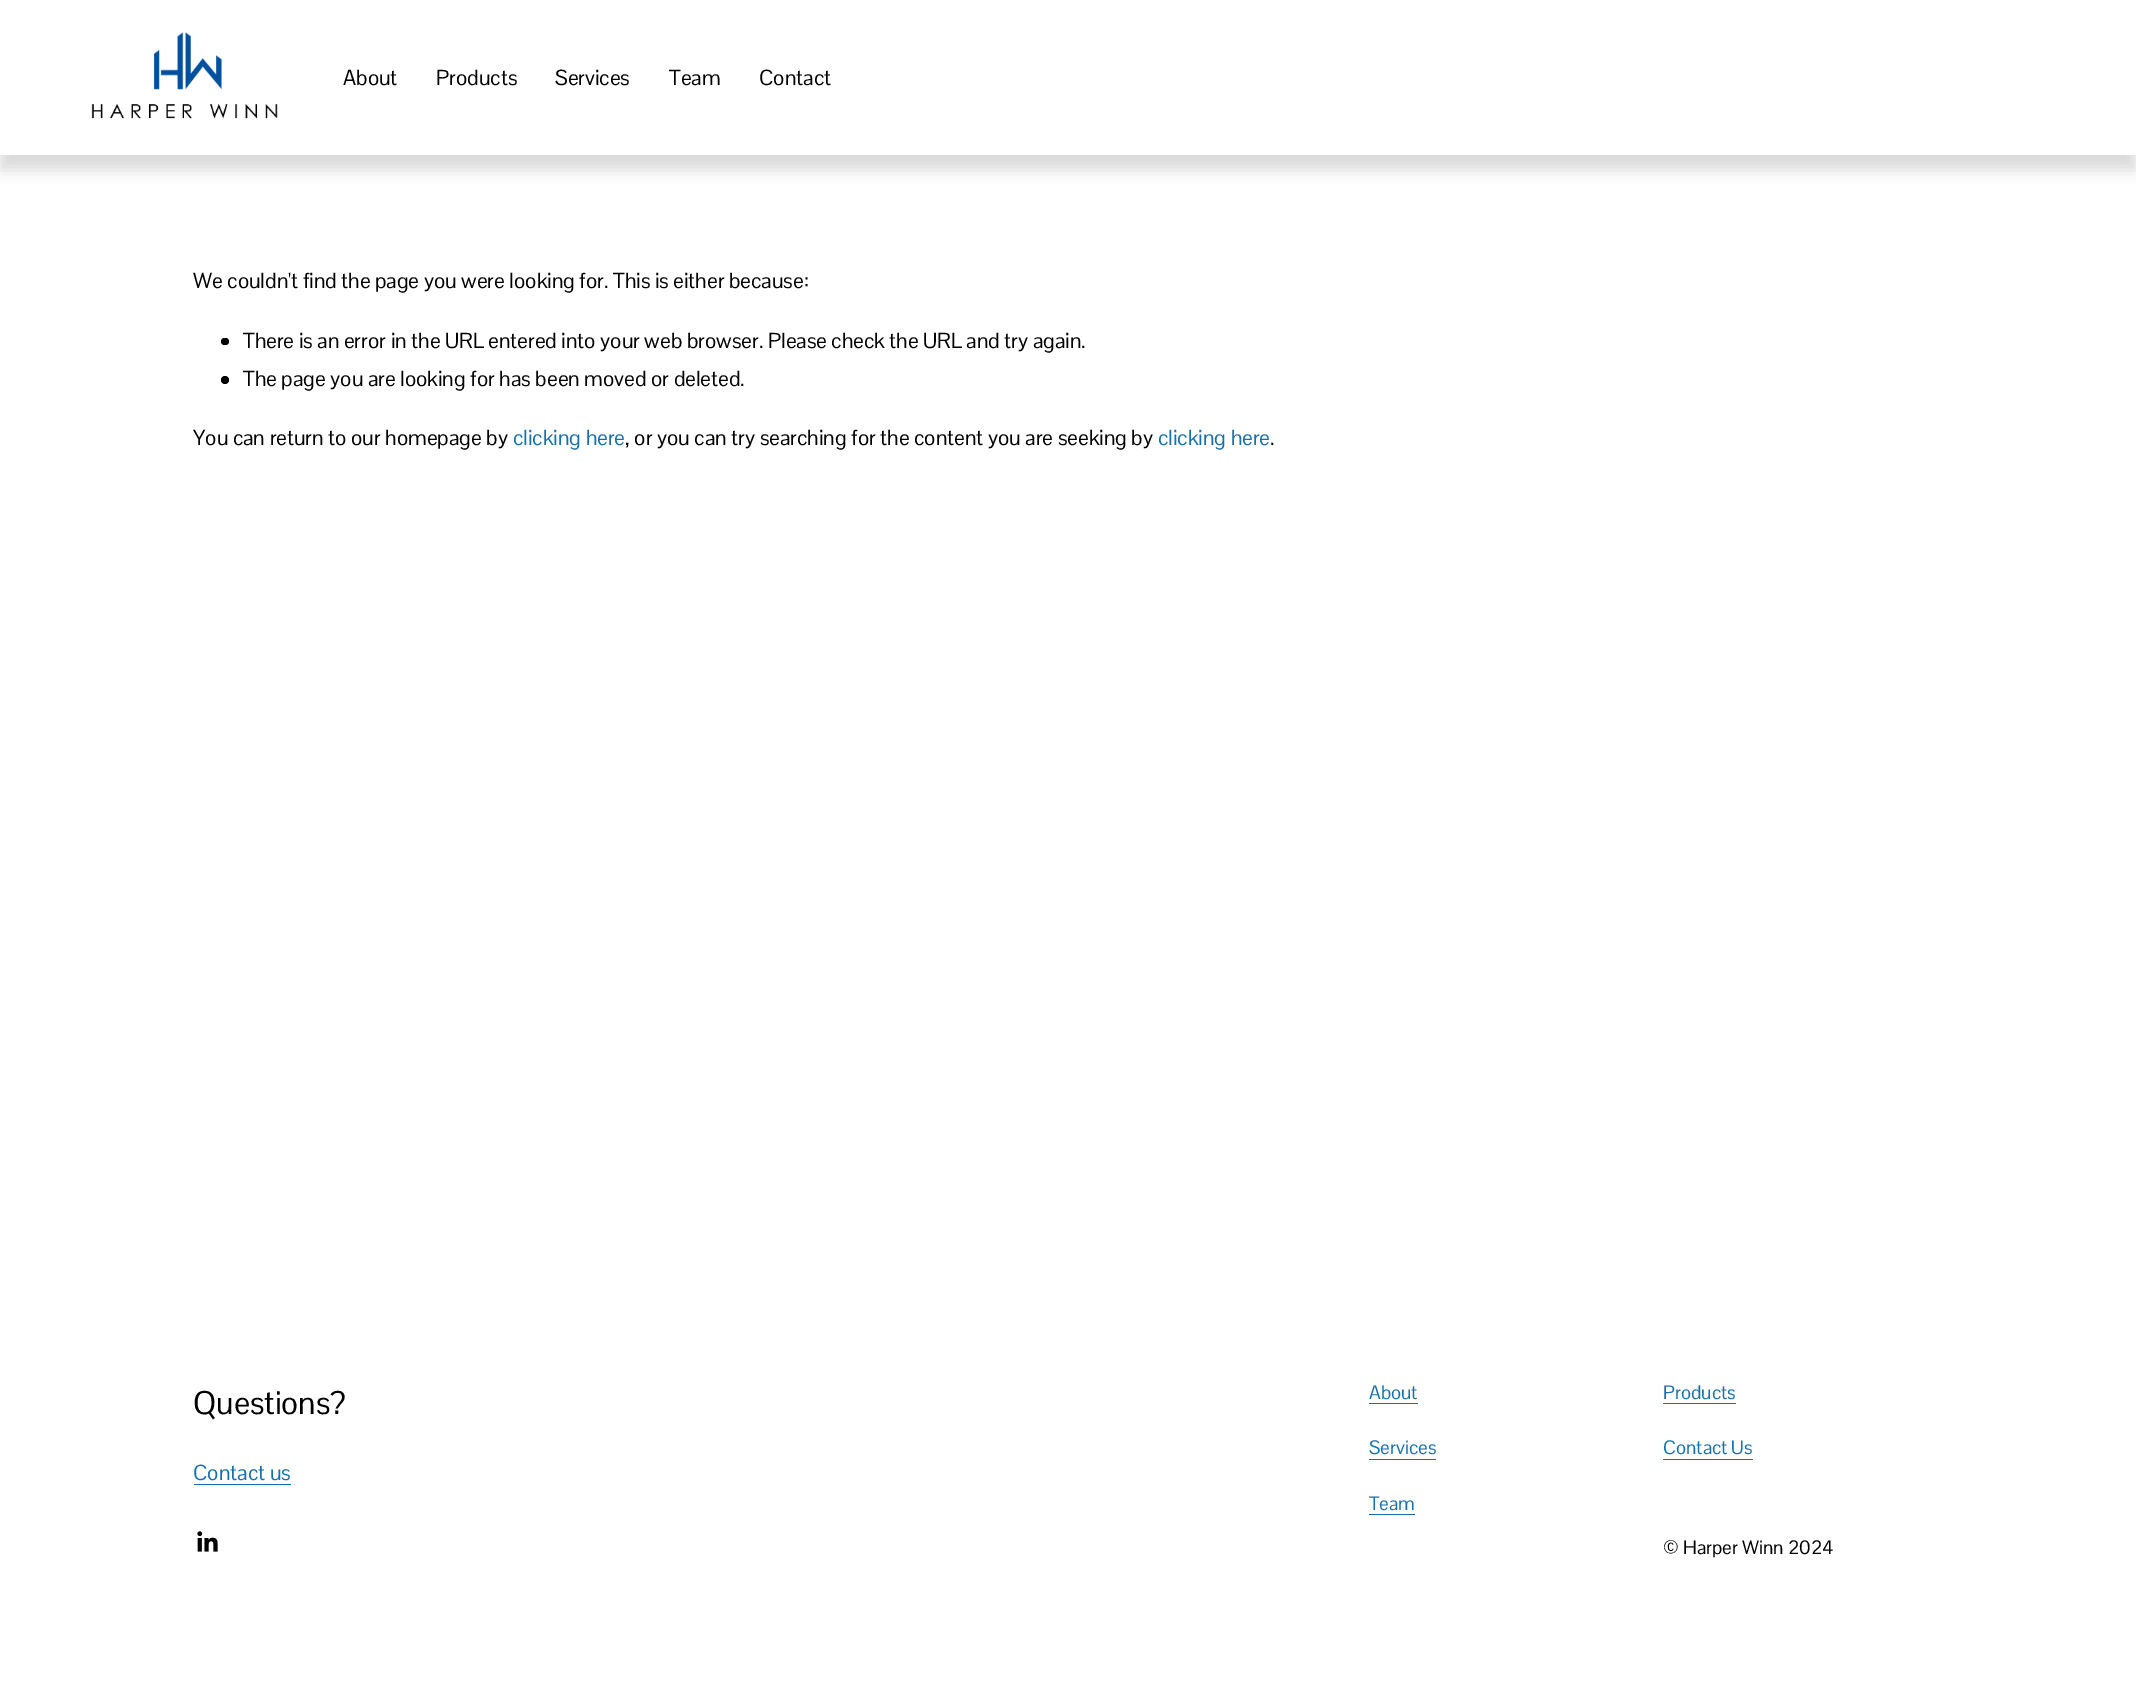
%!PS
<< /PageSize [2136 1700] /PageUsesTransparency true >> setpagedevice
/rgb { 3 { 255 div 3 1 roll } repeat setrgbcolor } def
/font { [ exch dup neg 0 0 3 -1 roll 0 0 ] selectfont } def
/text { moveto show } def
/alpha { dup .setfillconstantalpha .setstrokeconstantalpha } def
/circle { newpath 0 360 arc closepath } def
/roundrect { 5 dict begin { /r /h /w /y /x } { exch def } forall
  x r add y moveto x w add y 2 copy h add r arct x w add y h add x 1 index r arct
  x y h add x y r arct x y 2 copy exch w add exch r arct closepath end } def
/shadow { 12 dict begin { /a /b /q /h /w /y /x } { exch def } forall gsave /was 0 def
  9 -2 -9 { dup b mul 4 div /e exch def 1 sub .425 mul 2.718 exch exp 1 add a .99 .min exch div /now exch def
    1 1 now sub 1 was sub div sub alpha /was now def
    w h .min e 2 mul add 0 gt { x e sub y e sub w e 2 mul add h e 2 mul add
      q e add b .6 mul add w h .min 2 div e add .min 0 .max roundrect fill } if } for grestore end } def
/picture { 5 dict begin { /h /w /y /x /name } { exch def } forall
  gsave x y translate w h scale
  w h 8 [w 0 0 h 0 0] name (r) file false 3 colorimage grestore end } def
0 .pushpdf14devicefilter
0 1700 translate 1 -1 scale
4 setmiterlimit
255 255 255 rgb
0 0 2136 1700 rectfill
gsave
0 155 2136 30 rectclip
217 217 217 rgb
0 15 2136 155 0 7.5 1 shadow
grestore
(img_01.rgb) 91 32 187 87 picture
0 0 0 rgb
221 338 8 7 3.5 roundrect fill
225 380 4 circle fill
20 112 175 rgb
194 1484 97 1 rectfill
1369 1403 49 1 rectfill
1369 1459 67 1 rectfill
1369 1514 46 1 rectfill
1663 1403 73 1 rectfill
1663 1459 90 1 rectfill
(img_02.rgb) 197 1531 21 21 picture
/PontanoSans-Regular 21.25 font
0 0 0 rgb
(About) 343 85 text
(Products) 436 85 text
(Services) 555 85 text
(Team) 669 85 text
(Contact) 759 85 text
(We couldn't find the page you were looking for. This is either because:) 193 288 text
(There is an error in the URL entered into your web browser. Please check the URL and try again.) 243 348 text
(The page you are looking for has been moved or deleted.) 243 386 text
(You can return to our homepage by) 193 445 text
20 112 175 rgb
(clicking here) 513 445 text
0 0 0 rgb
(, or you can try searching for the content you are seeking by) 625 445 text
20 112 175 rgb
(clicking here) 1158 445 text
0 0 0 rgb
(.) 1270 445 text
/PontanoSans-Regular 32 font
(Questions?) 193 1414 text
/PontanoSans-Regular 21.25 font
20 112 175 rgb
(Contact us) 193 1480 text
/PontanoSans-Regular 19 font
(About) 1369 1399 text
(Services) 1369 1454 text
(Team) 1369 1510 text
(Products) 1663 1399 text
(Contact Us) 1663 1454 text
/PontanoSans-Bold 19 font
0 0 0 rgb
(©) 1663 1554 text
/PontanoSans-Regular 19 font
(Harper Winn 2024) 1683 1554 text
.poppdf14devicefilter showpage
